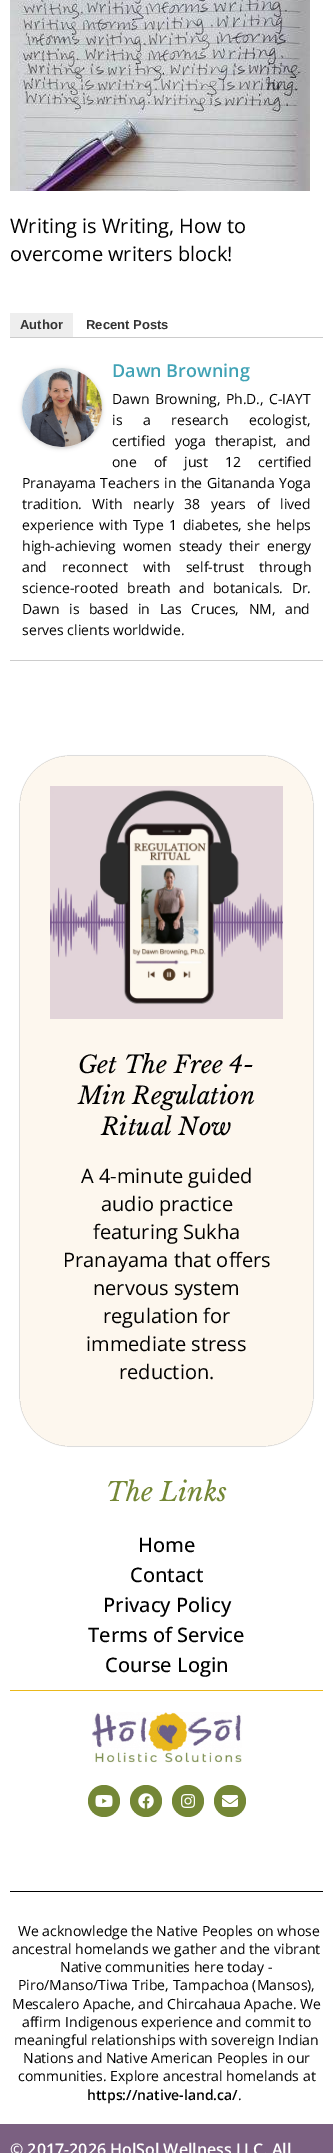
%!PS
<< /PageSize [333 2153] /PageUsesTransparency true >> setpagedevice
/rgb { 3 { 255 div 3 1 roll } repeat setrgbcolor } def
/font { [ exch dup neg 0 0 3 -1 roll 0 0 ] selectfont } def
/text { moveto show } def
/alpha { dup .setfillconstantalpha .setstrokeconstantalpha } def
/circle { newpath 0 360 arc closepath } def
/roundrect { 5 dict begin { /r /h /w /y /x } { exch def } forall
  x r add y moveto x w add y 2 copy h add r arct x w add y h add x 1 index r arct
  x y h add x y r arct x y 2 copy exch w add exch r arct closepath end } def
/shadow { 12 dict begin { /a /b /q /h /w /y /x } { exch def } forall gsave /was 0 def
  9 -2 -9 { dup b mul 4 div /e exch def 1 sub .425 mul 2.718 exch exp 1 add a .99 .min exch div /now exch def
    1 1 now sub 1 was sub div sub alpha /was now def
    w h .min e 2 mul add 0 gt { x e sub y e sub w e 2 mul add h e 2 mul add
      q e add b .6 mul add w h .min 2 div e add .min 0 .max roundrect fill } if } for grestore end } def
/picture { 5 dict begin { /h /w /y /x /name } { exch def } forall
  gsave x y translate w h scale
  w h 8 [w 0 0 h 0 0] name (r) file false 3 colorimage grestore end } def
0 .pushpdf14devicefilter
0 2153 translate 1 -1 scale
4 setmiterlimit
255 255 255 rgb
0 0 333 2153 rectfill
(img_01.rgb) 10 0 300 191 picture
204 204 204 rgb
10 337 313 1 rectfill
238 238 238 rgb
10 313 63 24 rectfill
204 204 204 rgb
10 660 313 1 rectfill
0 0 0 rgb
22 369 80 79 39.5 2 0.2 shadow
(img_02.rgb) 22 368 80 79 picture
20 756 293 690 50 0.5 0.5 shadow
253 247 238 rgb
20 756 293 690 50 roundrect fill
(img_03.rgb) 50 786 233 233 picture
234 184 27 rgb
10 1690 313 1 rectfill
0 0 0 rgb
10 1891 313 1 rectfill
(img_04.rgb) 92 1712 150 51 picture
116 135 54 rgb
104 1801 16 circle fill
(img_05.rgb) 95 1795 18 12 picture
146 1801 16 circle fill
(img_06.rgb) 138 1793 16 16 picture
188 1801 16 circle fill
(img_07.rgb) 181 1794 14 14 picture
230 1801 16 circle fill
(img_08.rgb) 222 1795 16 12 picture
123 96 129 rgb
0 2124 333 29 rectfill
/OpenSans-Regular 20 font
0 0 0 rgb
(Writing is Writing, How to) 10 233 text
(overcome writers block!) 10 261 text
/LiberationSans-Bold 13 font
51 51 51 rgb
(Author) 20 329 text
(Recent Posts) 86 329 text
/OpenSans-SemiBold 18 font
64 162 181 rgb
(Dawn Browning) 112 377 text
/OpenSans-Regular 14 font
0 0 0 rgb
112 404 moveto 1.5 0 32 (Dawn Browning, Ph.D., C-IAYT) widthshow
112 425 moveto 17 0 32 (is a research ecologist,) widthshow
112 446 moveto 5.5 0 32 (certified yoga therapist, and) widthshow
112 467 moveto 13.5 0 32 (one of just 12 certified) widthshow
22 488 moveto 1 0 32 (Pranayama Teachers in the Gitananda Yoga) widthshow
22 509 moveto 7 0 32 (tradition. With nearly 38 years of lived) widthshow
22 530 moveto 1.75 0 32 (experience with Type 1 diabetes, she helps) widthshow
22 551 moveto 3.5 0 32 (high-achieving women steady their energy) widthshow
22 572 moveto 11.5 0 32 (and reconnect with self-trust through) widthshow
22 593 moveto 5 0 32 (science-rooted breath and botanicals. Dr.) widthshow
22 614 moveto 6 0 32 (Dawn is based in Las Cruces, NM, and) widthshow
(serves clients worldwide.) 22 635 text
/LibreBaskerville-Italic 24 font
(Get The Free 4-) 78 1073 text
(Min Regulation) 78 1104 text
(Ritual Now) 101 1135 text
/OpenSans-Regular 20 font
(A 4-minute guided) 81 1183 text
(audio practice) 101 1211 text
(featuring Sukha) 93 1239 text
(Pranayama that offers) 63 1267 text
(nervous system) 93 1295 text
(regulation for) 103 1323 text
(immediate stress) 86 1351 text
(reduction.) 119 1379 text
/LibreBaskerville-Italic 26 font
116 135 54 rgb
(The Links) 106 1501 text
/OpenSans-Medium 20 font
0 0 0 rgb
(Home) 138 1552 text
(Contact) 130 1582 text
(Privacy Policy) 103 1612 text
(Terms of Service) 88 1642 text
(Course Login) 105 1672 text
/OpenSans-Regular 14 font
(We acknowledge the Native Peoples on whose) 18 1936 text
(ancestral homelands we gather and the vibrant) 12 1954 text
(Native communities here today -) 60 1972 text
(Piro/Manso/Tiwa Tribe, Tampachoa \(Mansos\),) 18 1990 text
(Mescalero Apache, and Chircahaua Apache. We) 12 2009 text
(affirm Indigenous experience and commit to) 22 2027 text
(meaningful relationships with sovereign Indian) 14 2045 text
(Nations and Native American Peoples in our) 23 2063 text
(communities. Explore ancestral homelands at) 18 2081 text
/OpenSans-SemiBold 14 font
(https://native-land.ca/) 87 2100 text
/OpenSans-Regular 14 font
(.) 238 2100 text
/OpenSans-SemiBold 16 font
255 255 255 rgb
(© 2017-2026 HolSol Wellness LLC. All) 10 2155 text
.poppdf14devicefilter showpage
